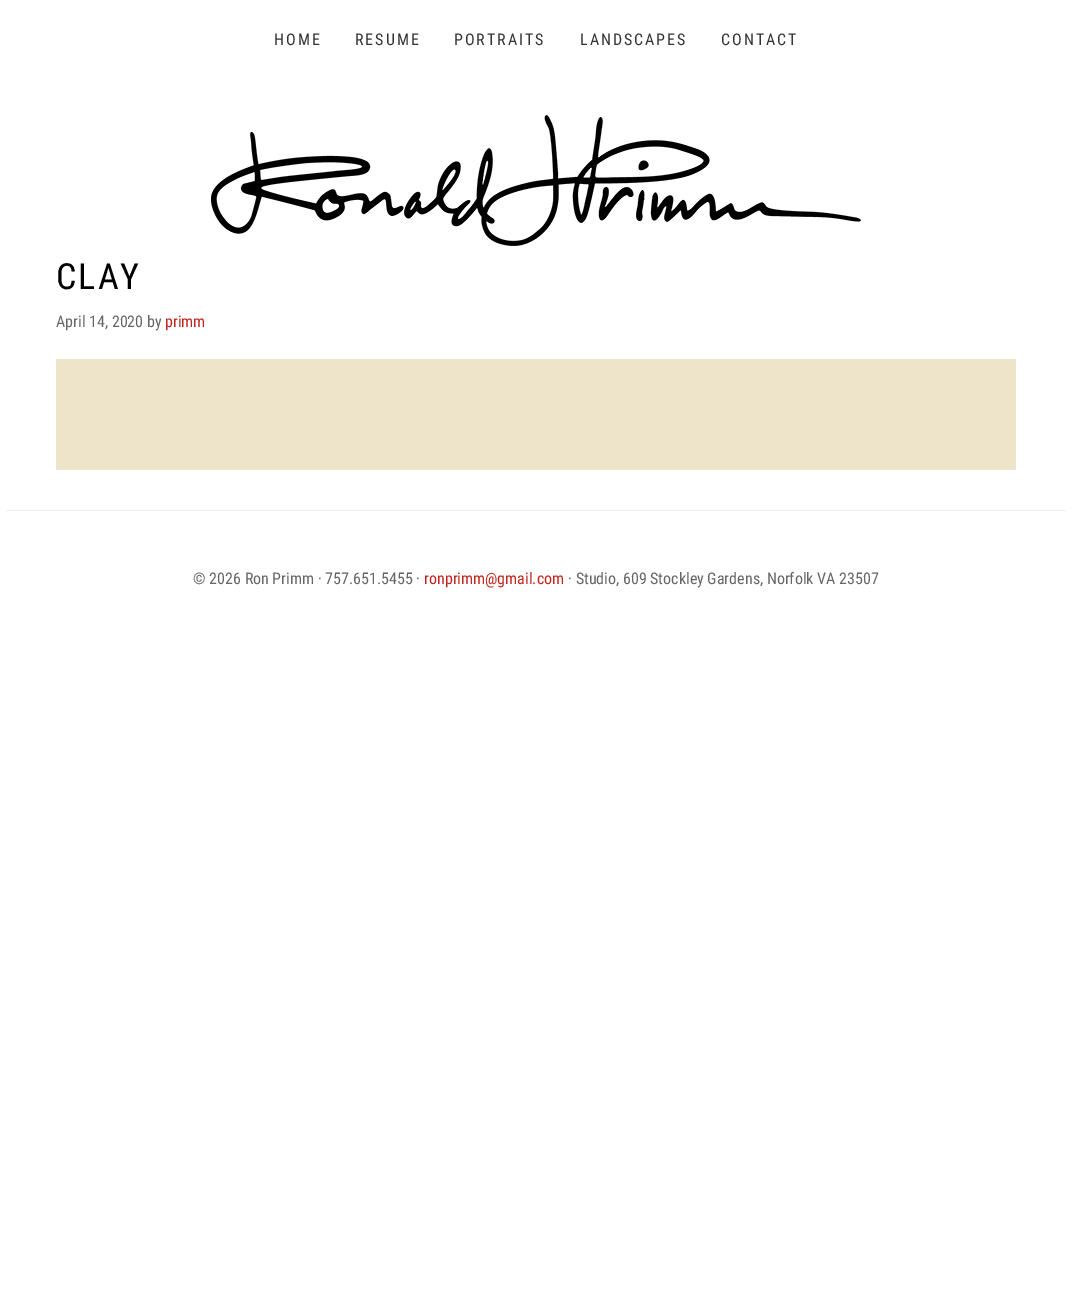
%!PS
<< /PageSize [1072 1316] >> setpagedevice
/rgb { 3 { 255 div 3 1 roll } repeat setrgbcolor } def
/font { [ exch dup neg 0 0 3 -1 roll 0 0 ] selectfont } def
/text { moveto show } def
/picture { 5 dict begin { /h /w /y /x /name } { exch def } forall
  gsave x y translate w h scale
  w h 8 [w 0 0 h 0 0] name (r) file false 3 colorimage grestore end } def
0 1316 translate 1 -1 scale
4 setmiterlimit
255 255 255 rgb
0 0 1072 1316 rectfill
(img_01.rgb) 211 115 650 131 picture
237 228 202 rgb
56 359 960 111 rectfill
238 238 238 rgb
6 510 1060 1 rectfill
/RobotoCondensed-Regular 16 font
51 51 51 rgb
274 45 moveto 2 0 (HOME) ashow
355 45 moveto 2 0 (RESUME) ashow
454 45 moveto 2 0 (PORTRAITS) ashow
580 45 moveto 2 0 (LANDSCAPES) ashow
721 45 moveto 2 0 (CONTACT) ashow
/RobotoCondensed-Regular 36 font
0 0 0 rgb
56 289 moveto 2 0 (CLAY) ashow
/RobotoCondensed-Regular 16 font
102 102 102 rgb
(April 14, 2020 by) 56 327 text
195 37 29 rgb
(primm) 165 327 text
102 102 102 rgb
(© 2026 Ron Primm · 757.651.5455 ·) 193 584 text
195 37 29 rgb
(ronprimm@gmail.com) 424 584 text
102 102 102 rgb
(· Studio, 609 Stockley Gardens, Norfolk VA 23507) 568 584 text
showpage
